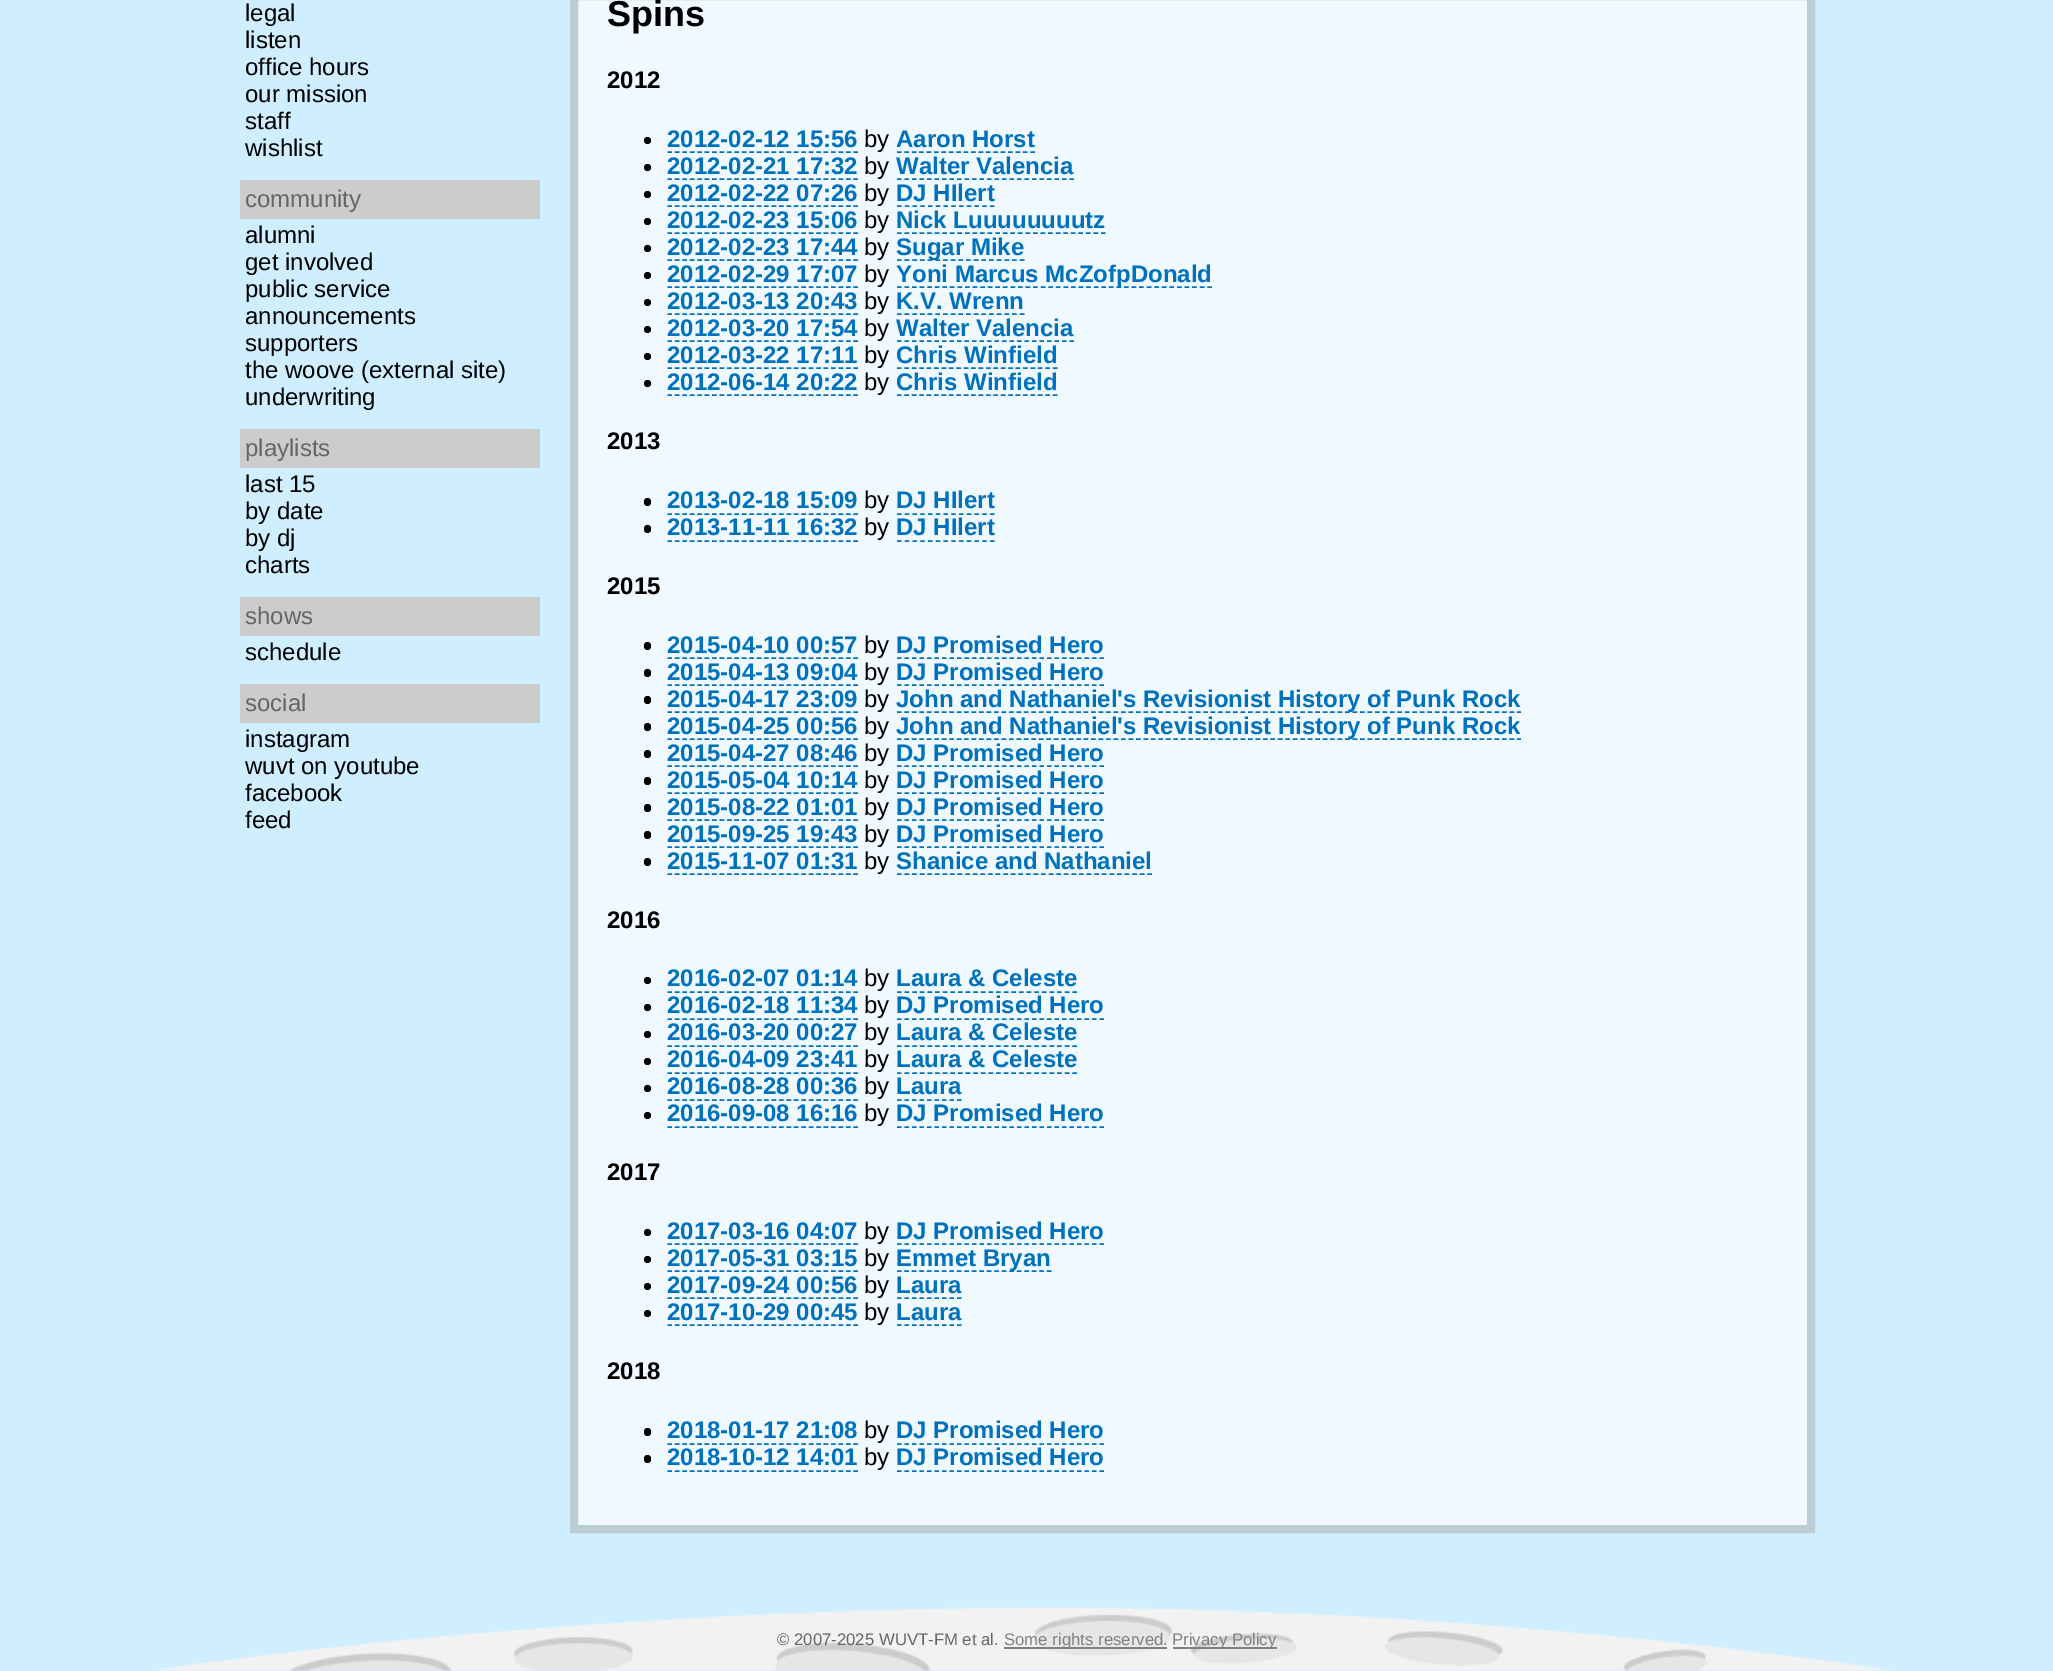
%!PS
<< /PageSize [2053 1671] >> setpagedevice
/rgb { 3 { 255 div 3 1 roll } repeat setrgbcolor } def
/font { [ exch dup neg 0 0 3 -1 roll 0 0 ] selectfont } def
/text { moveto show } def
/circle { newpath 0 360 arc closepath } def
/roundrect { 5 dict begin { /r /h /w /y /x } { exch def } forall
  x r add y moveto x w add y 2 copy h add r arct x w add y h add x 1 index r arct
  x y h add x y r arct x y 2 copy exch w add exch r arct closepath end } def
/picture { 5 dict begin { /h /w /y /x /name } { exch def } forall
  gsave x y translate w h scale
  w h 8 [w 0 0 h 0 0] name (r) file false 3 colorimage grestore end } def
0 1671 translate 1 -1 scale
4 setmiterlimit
207 238 255 rgb
0 0 2053 1671 rectfill
(img_01.rgb) 153 1607 1739 64 picture
204 204 204 rgb
240 180 300 39 rectfill
240 429 300 39 rectfill
240 597 300 39 rectfill
240 684 300 39 rectfill
240 249 255 rgb
574 -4 moveto 1237 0 rlineto 0 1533 rlineto -1237 0 rlineto closepath gsave fill grestore
188 204 211 rgb
8 setlinewidth
stroke
0 0 0 rgb
647.5 140.5 3.5 circle fill
0 113 188 rgb
1.5 setlinewidth
[4.5 2.94] 0 setdash
667.5 152 moveto 190.5 0 rlineto stroke
[4.5 2.91] 0 setdash
897 152 moveto 138 0 rlineto stroke
0 0 0 rgb
647.5 167.5 3.5 circle fill
0 113 188 rgb
[4.5 2.94] 0 setdash
667.5 179 moveto 190.5 0 rlineto stroke
[4.5 3] 0 setdash
897 179 moveto 177 0 rlineto stroke
0 0 0 rgb
647.5 194.5 3.5 circle fill
0 113 188 rgb
[4.5 2.94] 0 setdash
667.5 206 moveto 190.5 0 rlineto stroke
[4.5 3.25] 0 setdash
897 206 moveto 97.5 0 rlineto stroke
0 0 0 rgb
647.5 221.5 3.5 circle fill
0 113 188 rgb
[4.5 2.94] 0 setdash
667.5 233 moveto 190.5 0 rlineto stroke
[4.5 3.06] 0 setdash
897 233 moveto 208.5 0 rlineto stroke
0 0 0 rgb
647.5 248.5 3.5 circle fill
0 113 188 rgb
[4.5 2.94] 0 setdash
667.5 260 moveto 190.5 0 rlineto stroke
[4.5 3.18] 0 setdash
897 260 moveto 127.5 0 rlineto stroke
0 0 0 rgb
647.5 275.5 3.5 circle fill
0 113 188 rgb
[4.5 2.94] 0 setdash
667.5 287 moveto 190.5 0 rlineto stroke
[4.5 3.07] 0 setdash
897 287 moveto 315 0 rlineto stroke
0 0 0 rgb
647.5 302.5 3.5 circle fill
0 113 188 rgb
[4.5 2.94] 0 setdash
667.5 314 moveto 190.5 0 rlineto stroke
[4.5 3.18] 0 setdash
897 314 moveto 127.5 0 rlineto stroke
0 0 0 rgb
647.5 329.5 3.5 circle fill
0 113 188 rgb
[4.5 2.94] 0 setdash
667.5 341 moveto 190.5 0 rlineto stroke
[4.5 3] 0 setdash
897 341 moveto 177 0 rlineto stroke
0 0 0 rgb
647.5 356.5 3.5 circle fill
0 113 188 rgb
[4.5 2.94] 0 setdash
667.5 368 moveto 190.5 0 rlineto stroke
[4.5 2.92] 0 setdash
897 368 moveto 160.5 0 rlineto stroke
0 0 0 rgb
647.5 383.5 3.5 circle fill
0 113 188 rgb
[4.5 2.94] 0 setdash
667.5 395 moveto 190.5 0 rlineto stroke
[4.5 2.92] 0 setdash
897 395 moveto 160.5 0 rlineto stroke
0 0 0 rgb
644 498 7 8 3.5 roundrect fill
0 113 188 rgb
[4.5 2.94] 0 setdash
667.5 514 moveto 190.5 0 rlineto stroke
[4.5 3.25] 0 setdash
897 514 moveto 97.5 0 rlineto stroke
0 0 0 rgb
644 525 7 8 3.5 roundrect fill
0 113 188 rgb
[4.5 2.94] 0 setdash
667.5 541 moveto 190.5 0 rlineto stroke
[4.5 3.25] 0 setdash
897 541 moveto 97.5 0 rlineto stroke
0 0 0 rgb
644 642 7 8 3.5 roundrect fill
0 113 188 rgb
[4.5 2.94] 0 setdash
667.5 658 moveto 190.5 0 rlineto stroke
[4.5 3] 0 setdash
897 658 moveto 207 0 rlineto stroke
0 0 0 rgb
644 669 7 8 3.5 roundrect fill
0 113 188 rgb
[4.5 2.94] 0 setdash
667.5 685 moveto 190.5 0 rlineto stroke
[4.5 3] 0 setdash
897 685 moveto 207 0 rlineto stroke
0 0 0 rgb
644 696 7 8 3.5 roundrect fill
0 113 188 rgb
[4.5 2.94] 0 setdash
667.5 712 moveto 190.5 0 rlineto stroke
[4.5 2.97] 0 setdash
897 712 moveto 624 0 rlineto stroke
0 0 0 rgb
644 723 7 8 3.5 roundrect fill
0 113 188 rgb
[4.5 2.94] 0 setdash
667.5 739 moveto 190.5 0 rlineto stroke
[4.5 2.97] 0 setdash
897 739 moveto 624 0 rlineto stroke
0 0 0 rgb
644 750 7 8 3.5 roundrect fill
0 113 188 rgb
[4.5 2.94] 0 setdash
667.5 766 moveto 190.5 0 rlineto stroke
[4.5 3] 0 setdash
897 766 moveto 207 0 rlineto stroke
0 0 0 rgb
644 777 7 8 3.5 roundrect fill
0 113 188 rgb
[4.5 2.94] 0 setdash
667.5 793 moveto 190.5 0 rlineto stroke
[4.5 3] 0 setdash
897 793 moveto 207 0 rlineto stroke
0 0 0 rgb
644 804 7 8 3.5 roundrect fill
0 113 188 rgb
[4.5 2.94] 0 setdash
667.5 820 moveto 190.5 0 rlineto stroke
[4.5 3] 0 setdash
897 820 moveto 207 0 rlineto stroke
0 0 0 rgb
644 831 7 8 3.5 roundrect fill
0 113 188 rgb
[4.5 2.94] 0 setdash
667.5 847 moveto 190.5 0 rlineto stroke
[4.5 3] 0 setdash
897 847 moveto 207 0 rlineto stroke
0 0 0 rgb
644 858 7 8 3.5 roundrect fill
0 113 188 rgb
[4.5 2.94] 0 setdash
667.5 874 moveto 190.5 0 rlineto stroke
[4.5 3.09] 0 setdash
897 874 moveto 255 0 rlineto stroke
0 0 0 rgb
647.5 980.5 3.5 circle fill
0 113 188 rgb
[4.5 2.94] 0 setdash
667.5 992 moveto 190.5 0 rlineto stroke
[4.5 3.13] 0 setdash
897 992 moveto 180 0 rlineto stroke
0 0 0 rgb
647.5 1007.5 3.5 circle fill
0 113 188 rgb
[4.5 2.94] 0 setdash
667.5 1019 moveto 190.5 0 rlineto stroke
[4.5 3] 0 setdash
897 1019 moveto 207 0 rlineto stroke
0 0 0 rgb
647.5 1034.5 3.5 circle fill
0 113 188 rgb
[4.5 2.94] 0 setdash
667.5 1046 moveto 190.5 0 rlineto stroke
[4.5 3.13] 0 setdash
897 1046 moveto 180 0 rlineto stroke
0 0 0 rgb
647.5 1061.5 3.5 circle fill
0 113 188 rgb
[4.5 2.94] 0 setdash
667.5 1073 moveto 190.5 0 rlineto stroke
[4.5 3.13] 0 setdash
897 1073 moveto 180 0 rlineto stroke
0 0 0 rgb
647.5 1088.5 3.5 circle fill
0 113 188 rgb
[4.5 2.94] 0 setdash
667.5 1100 moveto 190.5 0 rlineto stroke
[4.5 3] 0 setdash
897 1100 moveto 64.5 0 rlineto stroke
0 0 0 rgb
647.5 1115.5 3.5 circle fill
0 113 188 rgb
[4.5 2.94] 0 setdash
667.5 1127 moveto 190.5 0 rlineto stroke
[4.5 3] 0 setdash
897 1127 moveto 207 0 rlineto stroke
0 0 0 rgb
647.5 1232.5 3.5 circle fill
0 113 188 rgb
[4.5 2.94] 0 setdash
667.5 1244 moveto 190.5 0 rlineto stroke
[4.5 3] 0 setdash
897 1244 moveto 207 0 rlineto stroke
0 0 0 rgb
647.5 1259.5 3.5 circle fill
0 113 188 rgb
[4.5 2.94] 0 setdash
667.5 1271 moveto 190.5 0 rlineto stroke
[4.5 3] 0 setdash
897 1271 moveto 154.5 0 rlineto stroke
0 0 0 rgb
647.5 1286.5 3.5 circle fill
0 113 188 rgb
[4.5 2.94] 0 setdash
667.5 1298 moveto 190.5 0 rlineto stroke
[4.5 3] 0 setdash
897 1298 moveto 64.5 0 rlineto stroke
0 0 0 rgb
647.5 1313.5 3.5 circle fill
0 113 188 rgb
[4.5 2.94] 0 setdash
667.5 1325 moveto 190.5 0 rlineto stroke
[4.5 3] 0 setdash
897 1325 moveto 64.5 0 rlineto stroke
0 0 0 rgb
644 1428 7 8 3.5 roundrect fill
0 113 188 rgb
[4.5 2.94] 0 setdash
667.5 1444 moveto 190.5 0 rlineto stroke
[4.5 3] 0 setdash
897 1444 moveto 207 0 rlineto stroke
0 0 0 rgb
644 1455 7 8 3.5 roundrect fill
0 113 188 rgb
[4.5 2.94] 0 setdash
667.5 1471 moveto 190.5 0 rlineto stroke
[4.5 3] 0 setdash
897 1471 moveto 207 0 rlineto stroke
128 128 128 rgb
1004 1647 163 2 rectfill
1173 1647 104 2 rectfill
/LiberationSans-Regular 24 font
0 0 0 rgb
(legal) 245 21 text
(listen) 245 48 text
(office hours) 245 75 text
(our mission) 245 102 text
(staff) 245 129 text
(wishlist) 245 156 text
102 102 102 rgb
(community) 245 207 text
0 0 0 rgb
(alumni) 245 243 text
(get involved) 245 270 text
(public service) 245 297 text
(announcements) 245 324 text
(supporters) 245 351 text
(the woove \(external site\)) 245 378 text
(underwriting) 245 405 text
102 102 102 rgb
(playlists) 245 456 text
0 0 0 rgb
(last 15) 245 492 text
(by date) 245 519 text
(by dj) 245 546 text
(charts) 245 573 text
102 102 102 rgb
(shows) 245 624 text
0 0 0 rgb
(schedule) 245 660 text
102 102 102 rgb
(social) 245 711 text
0 0 0 rgb
(instagram) 245 747 text
(wuvt on youtube) 245 774 text
(facebook) 245 801 text
(feed) 245 828 text
/LiberationSans-Bold 36 font
(Spins) 607 26 text
/LiberationSans-Bold 24 font
(2012) 607 88 text
0 113 188 rgb
(2012-02-12 15:56) 667 147 text
/LiberationSans-Regular 24 font
0 0 0 rgb
(by) 864 147 text
/LiberationSans-Bold 24 font
0 113 188 rgb
(Aaron Horst) 896 147 text
(2012-02-21 17:32) 667 174 text
/LiberationSans-Regular 24 font
0 0 0 rgb
(by) 864 174 text
/LiberationSans-Bold 24 font
0 113 188 rgb
(Walter Valencia) 896 174 text
(2012-02-22 07:26) 667 201 text
/LiberationSans-Regular 24 font
0 0 0 rgb
(by) 864 201 text
/LiberationSans-Bold 24 font
0 113 188 rgb
(DJ HIlert) 896 201 text
(2012-02-23 15:06) 667 228 text
/LiberationSans-Regular 24 font
0 0 0 rgb
(by) 864 228 text
/LiberationSans-Bold 24 font
0 113 188 rgb
(Nick Luuuuuuuutz) 896 228 text
(2012-02-23 17:44) 667 255 text
/LiberationSans-Regular 24 font
0 0 0 rgb
(by) 864 255 text
/LiberationSans-Bold 24 font
0 113 188 rgb
(Sugar Mike) 896 255 text
(2012-02-29 17:07) 667 282 text
/LiberationSans-Regular 24 font
0 0 0 rgb
(by) 864 282 text
/LiberationSans-Bold 24 font
0 113 188 rgb
(Yoni Marcus McZofpDonald) 896 282 text
(2012-03-13 20:43) 667 309 text
/LiberationSans-Regular 24 font
0 0 0 rgb
(by) 864 309 text
/LiberationSans-Bold 24 font
0 113 188 rgb
(K.V. Wrenn) 896 309 text
(2012-03-20 17:54) 667 336 text
/LiberationSans-Regular 24 font
0 0 0 rgb
(by) 864 336 text
/LiberationSans-Bold 24 font
0 113 188 rgb
(Walter Valencia) 896 336 text
(2012-03-22 17:11) 667 363 text
/LiberationSans-Regular 24 font
0 0 0 rgb
(by) 864 363 text
/LiberationSans-Bold 24 font
0 113 188 rgb
(Chris Winfield) 896 363 text
(2012-06-14 20:22) 667 390 text
/LiberationSans-Regular 24 font
0 0 0 rgb
(by) 864 390 text
/LiberationSans-Bold 24 font
0 113 188 rgb
(Chris Winfield) 896 390 text
0 0 0 rgb
(2013) 607 449 text
0 113 188 rgb
(2013-02-18 15:09) 667 508 text
/LiberationSans-Regular 24 font
0 0 0 rgb
(by) 864 508 text
/LiberationSans-Bold 24 font
0 113 188 rgb
(DJ HIlert) 896 508 text
(2013-11-11 16:32) 667 535 text
/LiberationSans-Regular 24 font
0 0 0 rgb
(by) 864 535 text
/LiberationSans-Bold 24 font
0 113 188 rgb
(DJ HIlert) 896 535 text
0 0 0 rgb
(2015) 607 594 text
0 113 188 rgb
(2015-04-10 00:57) 667 653 text
/LiberationSans-Regular 24 font
0 0 0 rgb
(by) 864 653 text
/LiberationSans-Bold 24 font
0 113 188 rgb
(DJ Promised Hero) 896 653 text
(2015-04-13 09:04) 667 680 text
/LiberationSans-Regular 24 font
0 0 0 rgb
(by) 864 680 text
/LiberationSans-Bold 24 font
0 113 188 rgb
(DJ Promised Hero) 896 680 text
(2015-04-17 23:09) 667 707 text
/LiberationSans-Regular 24 font
0 0 0 rgb
(by) 864 707 text
/LiberationSans-Bold 24 font
0 113 188 rgb
(John and Nathaniel's Revisionist History of Punk Rock) 896 707 text
(2015-04-25 00:56) 667 734 text
/LiberationSans-Regular 24 font
0 0 0 rgb
(by) 864 734 text
/LiberationSans-Bold 24 font
0 113 188 rgb
(John and Nathaniel's Revisionist History of Punk Rock) 896 734 text
(2015-04-27 08:46) 667 761 text
/LiberationSans-Regular 24 font
0 0 0 rgb
(by) 864 761 text
/LiberationSans-Bold 24 font
0 113 188 rgb
(DJ Promised Hero) 896 761 text
(2015-05-04 10:14) 667 788 text
/LiberationSans-Regular 24 font
0 0 0 rgb
(by) 864 788 text
/LiberationSans-Bold 24 font
0 113 188 rgb
(DJ Promised Hero) 896 788 text
(2015-08-22 01:01) 667 815 text
/LiberationSans-Regular 24 font
0 0 0 rgb
(by) 864 815 text
/LiberationSans-Bold 24 font
0 113 188 rgb
(DJ Promised Hero) 896 815 text
(2015-09-25 19:43) 667 842 text
/LiberationSans-Regular 24 font
0 0 0 rgb
(by) 864 842 text
/LiberationSans-Bold 24 font
0 113 188 rgb
(DJ Promised Hero) 896 842 text
(2015-11-07 01:31) 667 869 text
/LiberationSans-Regular 24 font
0 0 0 rgb
(by) 864 869 text
/LiberationSans-Bold 24 font
0 113 188 rgb
(Shanice and Nathaniel) 896 869 text
0 0 0 rgb
(2016) 607 928 text
0 113 188 rgb
(2016-02-07 01:14) 667 986 text
/LiberationSans-Regular 24 font
0 0 0 rgb
(by) 864 986 text
/LiberationSans-Bold 24 font
0 113 188 rgb
(Laura & Celeste) 896 986 text
(2016-02-18 11:34) 667 1013 text
/LiberationSans-Regular 24 font
0 0 0 rgb
(by) 864 1013 text
/LiberationSans-Bold 24 font
0 113 188 rgb
(DJ Promised Hero) 896 1013 text
(2016-03-20 00:27) 667 1040 text
/LiberationSans-Regular 24 font
0 0 0 rgb
(by) 864 1040 text
/LiberationSans-Bold 24 font
0 113 188 rgb
(Laura & Celeste) 896 1040 text
(2016-04-09 23:41) 667 1067 text
/LiberationSans-Regular 24 font
0 0 0 rgb
(by) 864 1067 text
/LiberationSans-Bold 24 font
0 113 188 rgb
(Laura & Celeste) 896 1067 text
(2016-08-28 00:36) 667 1094 text
/LiberationSans-Regular 24 font
0 0 0 rgb
(by) 864 1094 text
/LiberationSans-Bold 24 font
0 113 188 rgb
(Laura) 896 1094 text
(2016-09-08 16:16) 667 1121 text
/LiberationSans-Regular 24 font
0 0 0 rgb
(by) 864 1121 text
/LiberationSans-Bold 24 font
0 113 188 rgb
(DJ Promised Hero) 896 1121 text
0 0 0 rgb
(2017) 607 1180 text
0 113 188 rgb
(2017-03-16 04:07) 667 1239 text
/LiberationSans-Regular 24 font
0 0 0 rgb
(by) 864 1239 text
/LiberationSans-Bold 24 font
0 113 188 rgb
(DJ Promised Hero) 896 1239 text
(2017-05-31 03:15) 667 1266 text
/LiberationSans-Regular 24 font
0 0 0 rgb
(by) 864 1266 text
/LiberationSans-Bold 24 font
0 113 188 rgb
(Emmet Bryan) 896 1266 text
(2017-09-24 00:56) 667 1293 text
/LiberationSans-Regular 24 font
0 0 0 rgb
(by) 864 1293 text
/LiberationSans-Bold 24 font
0 113 188 rgb
(Laura) 896 1293 text
(2017-10-29 00:45) 667 1320 text
/LiberationSans-Regular 24 font
0 0 0 rgb
(by) 864 1320 text
/LiberationSans-Bold 24 font
0 113 188 rgb
(Laura) 896 1320 text
0 0 0 rgb
(2018) 607 1379 text
0 113 188 rgb
(2018-01-17 21:08) 667 1438 text
/LiberationSans-Regular 24 font
0 0 0 rgb
(by) 864 1438 text
/LiberationSans-Bold 24 font
0 113 188 rgb
(DJ Promised Hero) 896 1438 text
(2018-10-12 14:01) 667 1465 text
/LiberationSans-Regular 24 font
0 0 0 rgb
(by) 864 1465 text
/LiberationSans-Bold 24 font
0 113 188 rgb
(DJ Promised Hero) 896 1465 text
/LiberationSans-Regular 16.75 font
102 102 102 rgb
(© 2007-2025 WUVT-FM et al.) 777 1645 text
128 128 128 rgb
(Some rights reserved.) 1004 1645 text
(Privacy Policy) 1172 1645 text
showpage
